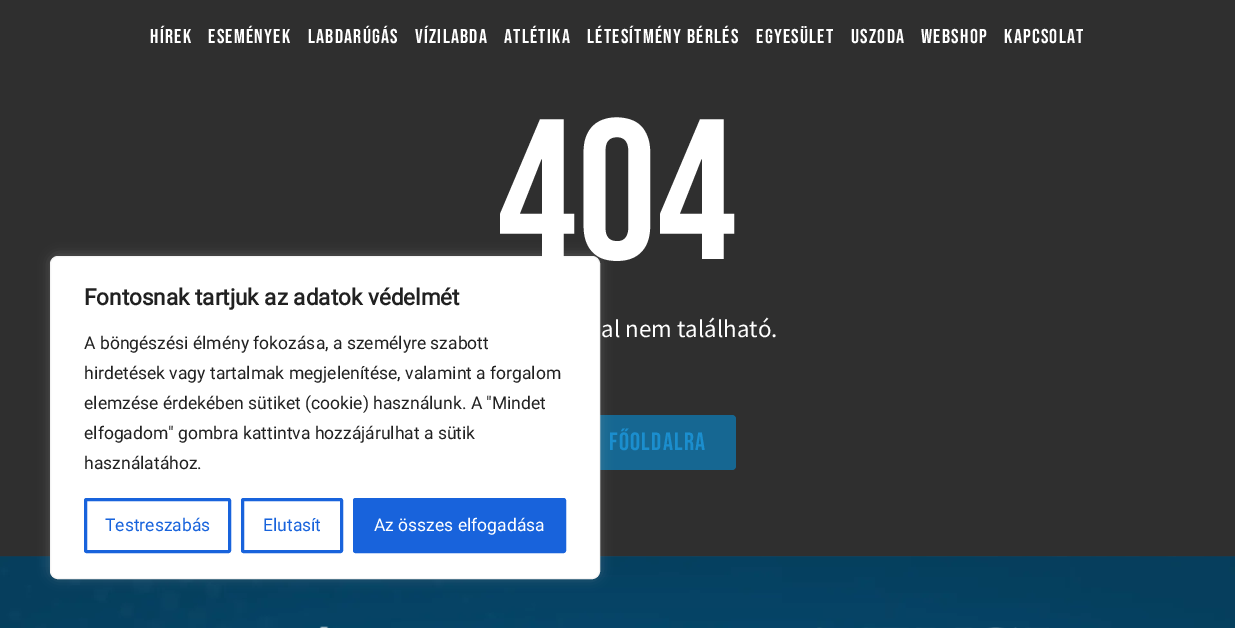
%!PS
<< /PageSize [1235 628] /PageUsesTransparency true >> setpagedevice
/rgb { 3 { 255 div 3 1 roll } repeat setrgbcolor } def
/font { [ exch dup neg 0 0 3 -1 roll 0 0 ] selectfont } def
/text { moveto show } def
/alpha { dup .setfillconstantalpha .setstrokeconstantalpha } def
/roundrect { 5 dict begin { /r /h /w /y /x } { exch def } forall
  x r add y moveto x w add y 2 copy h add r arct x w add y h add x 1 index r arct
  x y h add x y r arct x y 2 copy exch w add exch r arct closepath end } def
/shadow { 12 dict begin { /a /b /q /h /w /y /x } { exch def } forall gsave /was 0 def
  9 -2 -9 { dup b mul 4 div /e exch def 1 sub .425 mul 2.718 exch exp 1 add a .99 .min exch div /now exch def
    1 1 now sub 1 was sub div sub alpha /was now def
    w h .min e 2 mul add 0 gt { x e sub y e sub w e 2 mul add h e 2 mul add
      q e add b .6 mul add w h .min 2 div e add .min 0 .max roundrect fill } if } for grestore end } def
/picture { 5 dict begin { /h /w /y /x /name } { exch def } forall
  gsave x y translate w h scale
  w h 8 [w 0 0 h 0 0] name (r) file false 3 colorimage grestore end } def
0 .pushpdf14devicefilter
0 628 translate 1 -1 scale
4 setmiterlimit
47 47 47 rgb
0 0 1235 628 rectfill
22 103 146 rgb
499 415 237 55 4 roundrect fill
(img_01.rgb) 0 556 1235 72 picture
172 171 171 rgb
50 255 550 323 8 6 0.3 shadow
255 255 255 rgb
50.5 256.5 549 322 7.5 roundrect gsave fill grestore
244 244 244 rgb
stroke
24 99 220 rgb
3 setlinewidth
85.5 499.5 144 52 1 roundrect stroke
242.5 499.5 99 52 1 roundrect stroke
354.5 499.5 210 52 1 roundrect gsave fill grestore
stroke
(img_02.rgb) 319 626 10 2 picture
(img_03.rgb) 817 627 232 1 picture
/BebasNeue-Regular 20 font
255 255 255 rgb
150 43 moveto 1.25 0 (HÍREK) ashow
208 43 moveto 1.25 0 (ESEMÉNYEK) ashow
308 43 moveto 1.25 0 (LABDARÚGÁS) ashow
415 43 moveto 1.25 0 (VÍZILABDA) ashow
504 43 moveto 1.25 0 (ATLÉTIKA) ashow
587 43 moveto 1.25 0 (LÉTESÍTMÉNY BÉRLÉS) ashow
756 43 moveto 1.25 0 (EGYESÜLET) ashow
851 43 moveto 1.25 0 (USZODA) ashow
921 43 moveto 1.25 0 (WEBSHOP) ashow
1004 43 moveto 1.25 0 (KAPCSOLAT) ashow
/Roboto-Bold 22.5 font
33 33 33 rgb
(Fontosnak tartjuk az adatok védelmét) 84 305 text
/Roboto-Regular 17.5 font
(A böngészési élmény fokozása, a személyre szabott) 84 349 text
(hirdetések vagy tartalmak megjelenítése, valamint a forgalom) 84 379 text
(elemzése érdekében sütiket \(cookie\) használunk. A "Mindet) 84 409 text
(elfogadom" gombra kattintva hozzájárulhat a sütik) 84 439 text
(használatához.) 84 469 text
24 99 220 rgb
(Testreszabás) 105 531 text
(Elutasít) 263 531 text
255 255 255 rgb
(Az összes elfogadása) 374 531 text
/BebasNeue-Regular 200 font
(404) 497 259 text
/SourceSansPro-Regular 25 font
(al nem található.) 601 337 text
/BebasNeue-Regular 25 font
27 142 206 rgb
609 450 moveto 1.25 0 (FŐOLDALRA) ashow
.poppdf14devicefilter showpage
